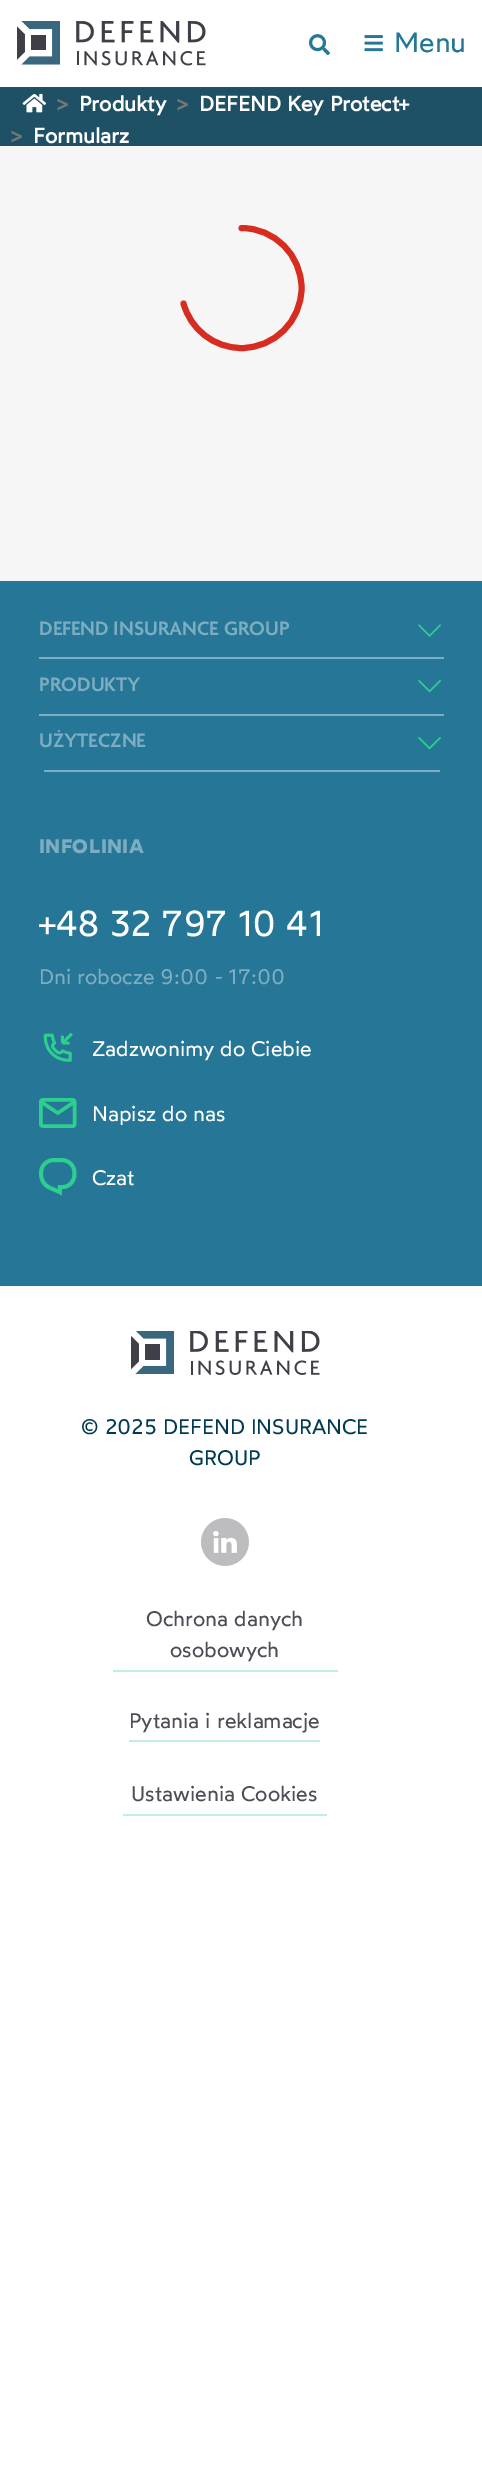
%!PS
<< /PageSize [482 2474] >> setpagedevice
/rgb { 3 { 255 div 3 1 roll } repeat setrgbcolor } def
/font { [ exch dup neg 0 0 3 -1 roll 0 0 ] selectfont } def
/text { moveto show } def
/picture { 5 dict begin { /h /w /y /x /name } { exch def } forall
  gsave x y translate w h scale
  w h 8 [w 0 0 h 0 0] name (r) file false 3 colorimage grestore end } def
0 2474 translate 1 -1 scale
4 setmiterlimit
255 255 255 rgb
0 0 482 2474 rectfill
(img_01.rgb) 17 21 189 45 picture
(img_02.rgb) 309 34 21 22 picture
(img_03.rgb) 364 35 19 17 picture
30 81 102 rgb
0 87 482 59 rectfill
(img_04.rgb) 22 93 25 20 picture
246 246 246 rgb
0 146 482 435 rectfill
214 45 32 rgb
6 setlinewidth
1 setlinecap
241.5 228 moveto 33 0 60 27 60 60 rcurveto 0 33 -27 60 -60 60 rcurveto -28 0 -51 -19 -58 -44.5 rcurveto stroke
38 118 151 rgb
0 581 482 705 rectfill
125 173 193 rgb
39 657 405 2 rectfill
(img_05.rgb) 418 624 23 13 picture
39 714 405 2 rectfill
(img_06.rgb) 418 680 23 13 picture
44 770 396 2 rectfill
(img_06.rgb) 418 737 23 13 picture
(img_07.rgb) 43 1032 30 30 picture
(img_08.rgb) 39 1098 38 30 picture
(img_09.rgb) 39 1158 38 38 picture
(img_10.rgb) 131 1331 189 44 picture
(img_11.rgb) 201 1518 48 48 picture
192 241 221 rgb
113 1670 225 2 rectfill
129 1740 191 2 rectfill
123 1814 204 2 rectfill
/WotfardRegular-Regular 28 font
38 118 151 rgb
(Menu) 394 52 text
/WotfardRegular-Bold 21 font
119 119 119 rgb
(>) 57 111 text
255 255 255 rgb
(Produkty) 79 111 text
119 119 119 rgb
(>) 177 111 text
255 255 255 rgb
(DEFEND Key Protect+) 199 111 text
119 119 119 rgb
(>) 11 143 text
255 255 255 rgb
(Formularz) 33 143 text
/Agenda-SemiBold 21 font
125 173 193 rgb
(DEFEND INSURANCE GROUP) 39 635 text
(PRODUKTY) 39 691 text
(UŻYTECZNE) 39 747 text
/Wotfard-Bold 19.5 font
39 853 moveto 0.5 0 (INFOLINIA) ashow
/WotfardRegular-Regular 36 font
255 255 255 rgb
39 936 moveto -0.75 0 (+48 32 797 10 41) ashow
/WotfardRegular-Regular 21 font
125 173 193 rgb
(Dni robocze 9:00 - 17:00) 39 984 text
255 255 255 rgb
(Zadzwonimy do Ciebie) 92 1056 text
(Napisz do nas) 92 1121 text
(Czat) 92 1185 text
0 59 83 rgb
(© 2025 DEFEND INSURANCE) 81 1434 text
(GROUP) 189 1465 text
77 77 85 rgb
(Ochrona danych) 146 1626 text
(osobowych) 170 1657 text
(Pytania i reklamacje) 129 1728 text
(Ustawienia Cookies) 131 1801 text
showpage
